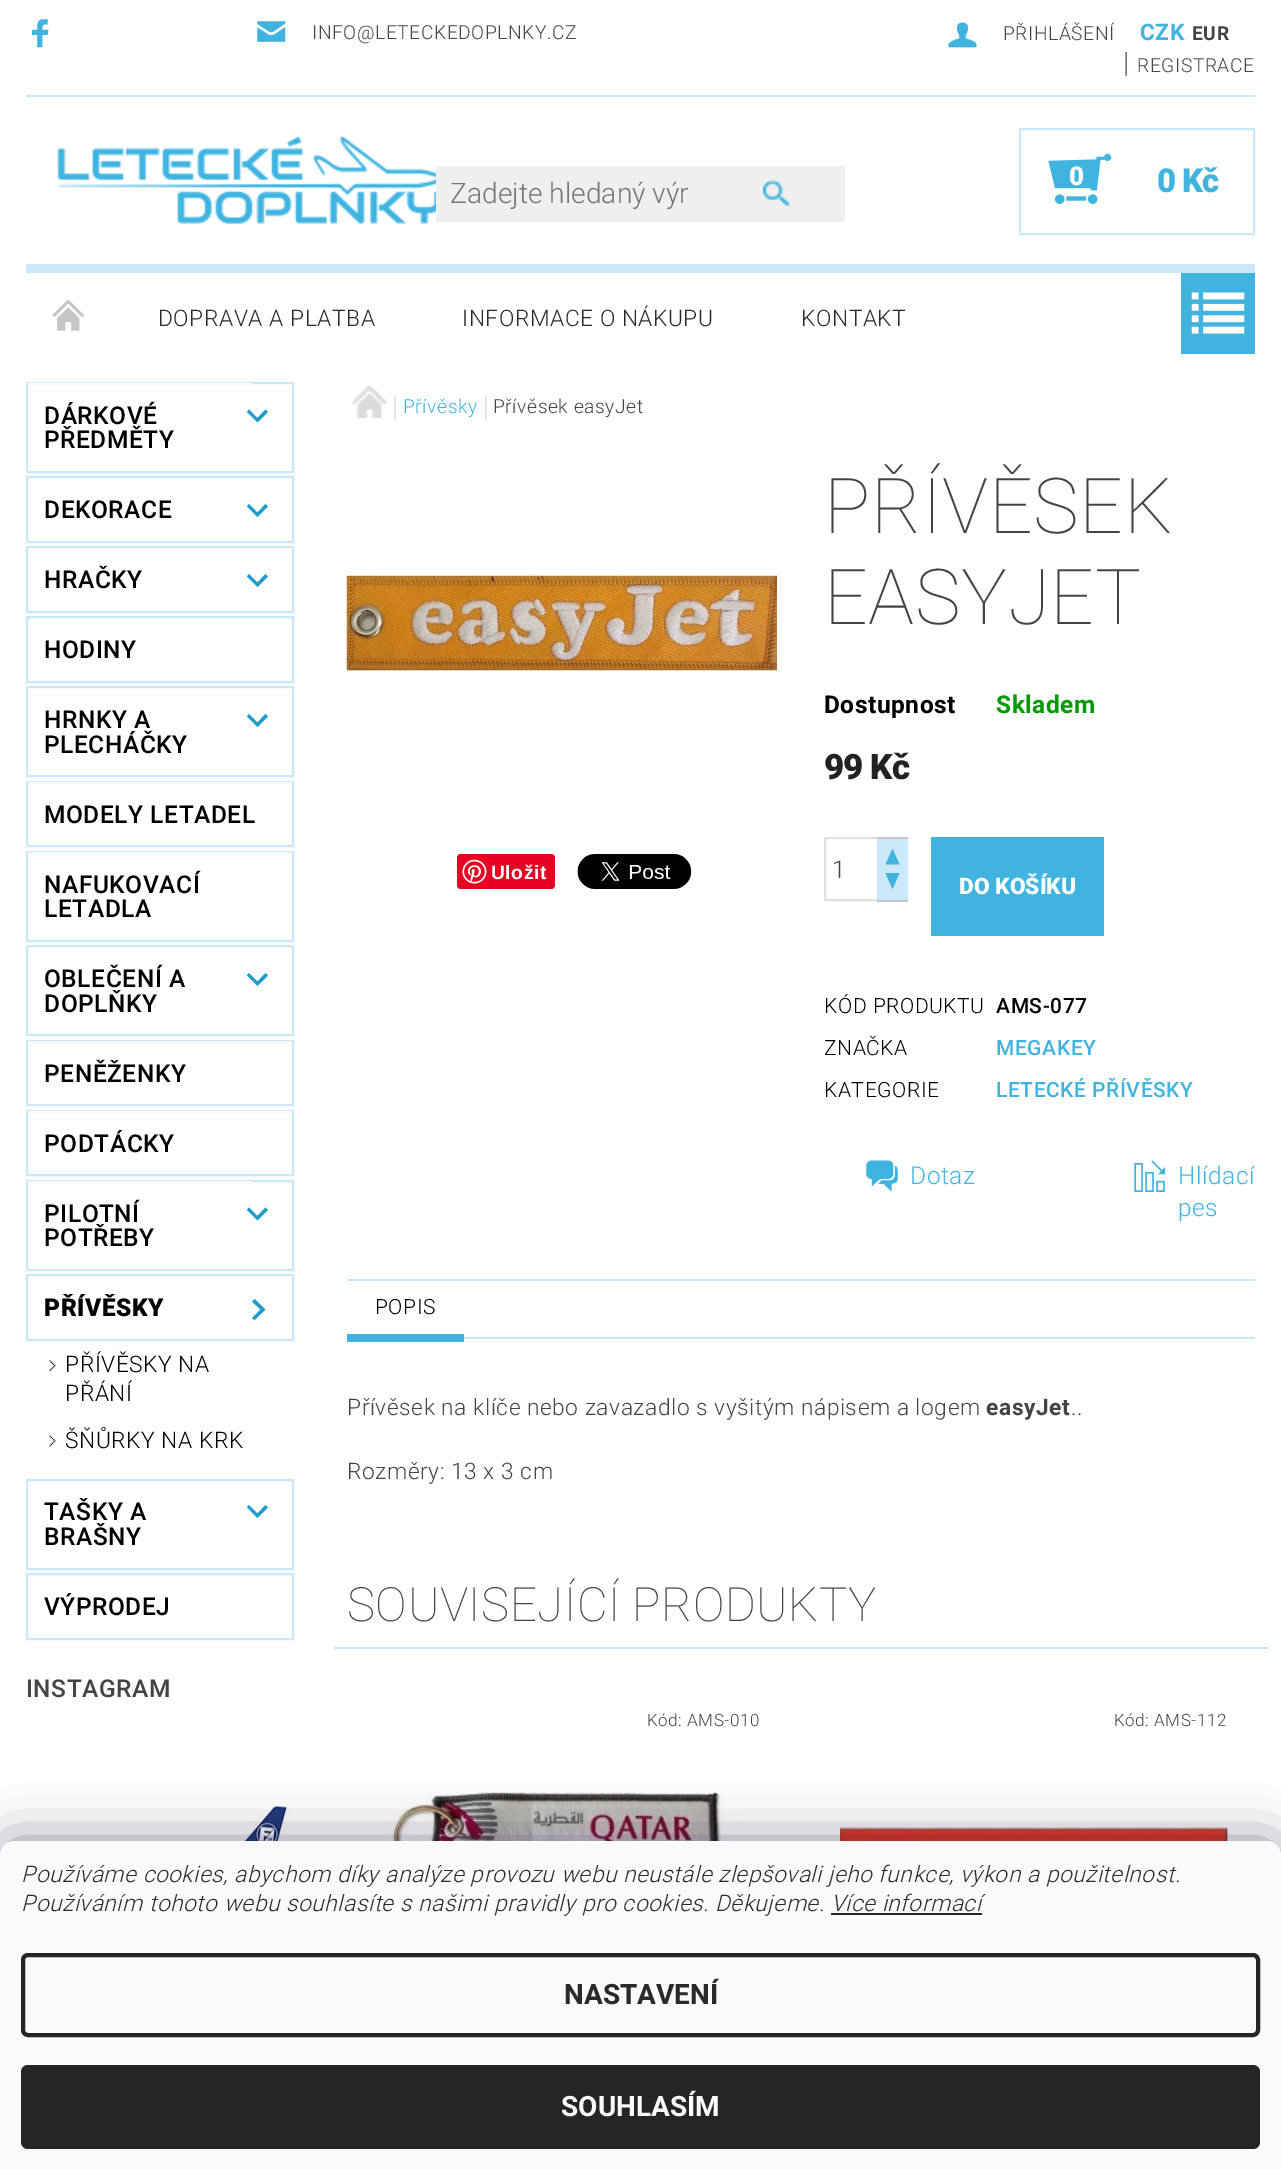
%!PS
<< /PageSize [1281 2169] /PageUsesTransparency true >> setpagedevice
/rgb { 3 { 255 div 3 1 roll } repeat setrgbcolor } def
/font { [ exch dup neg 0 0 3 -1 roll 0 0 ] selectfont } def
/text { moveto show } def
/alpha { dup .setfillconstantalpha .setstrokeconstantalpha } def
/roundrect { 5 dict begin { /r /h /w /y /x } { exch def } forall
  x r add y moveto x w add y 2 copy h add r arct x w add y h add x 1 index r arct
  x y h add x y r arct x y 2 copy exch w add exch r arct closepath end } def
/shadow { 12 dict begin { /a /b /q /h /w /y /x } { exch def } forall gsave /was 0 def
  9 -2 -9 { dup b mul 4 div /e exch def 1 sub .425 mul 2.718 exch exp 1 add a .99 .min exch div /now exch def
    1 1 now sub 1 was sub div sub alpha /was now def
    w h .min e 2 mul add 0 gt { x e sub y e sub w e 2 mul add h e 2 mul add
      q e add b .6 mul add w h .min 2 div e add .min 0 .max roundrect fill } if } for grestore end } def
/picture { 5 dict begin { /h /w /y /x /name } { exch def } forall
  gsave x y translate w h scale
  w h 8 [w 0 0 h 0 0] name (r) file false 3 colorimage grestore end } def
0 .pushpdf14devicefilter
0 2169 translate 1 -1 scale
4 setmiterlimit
255 255 255 rgb
0 0 1281 2169 rectfill
203 232 251 rgb
26 95 1229 2 rectfill
(img_01.rgb) 31 19 18 29 picture
(img_02.rgb) 257 21 29 21 picture
(img_03.rgb) 948 22 29 26 picture
(img_04.rgb) 57 135 379 90 picture
239 239 239 rgb
436 166 409 56 rectfill
64 179 223 rgb
763 179 27 28 rectfill
(img_05.rgb) 763 179 28 29 picture
203 232 251 rgb
2 setlinewidth
1020 129 234 105 rectstroke
(img_06.rgb) 1048 153 64 51 picture
26 264 1229 9 rectfill
(img_07.rgb) 52 300 32 31 picture
64 179 223 rgb
1181 273 74 81 rectfill
(img_08.rgb) 1191 292 54 42 picture
203 232 251 rgb
27 383 266 89 rectstroke
255 255 255 rgb
28 383 224 1 rectfill
33 155 202 rgb
247 412 moveto 10.5 10.5 rlineto 10.5 -10.5 rlineto -2.5 -2.5 rlineto -8 8.5 rlineto -8.5 -8.5 rlineto closepath fill
203 232 251 rgb
27 477 266 65 rectstroke
33 155 202 rgb
247 506.5 moveto 10.5 10.5 rlineto 10.5 -10.5 rlineto -2.5 -2.5 rlineto -8 8.5 rlineto -8.5 -8.5 rlineto closepath fill
203 232 251 rgb
27 547 266 65 rectstroke
33 155 202 rgb
247 576.5 moveto 10.5 10.5 rlineto 10.5 -10.5 rlineto -2.5 -2.5 rlineto -8 8.5 rlineto -8.5 -8.5 rlineto closepath fill
203 232 251 rgb
27 617 266 65 rectstroke
27 687 266 89 rectstroke
33 155 202 rgb
247 716.5 moveto 10.5 10.5 rlineto 10.5 -10.5 rlineto -2.5 -2.5 rlineto -8 8.5 rlineto -8.5 -8.5 rlineto closepath fill
203 232 251 rgb
27 782 266 64 rectstroke
255 255 255 rgb
28 782 264 1 rectfill
203 232 251 rgb
27 852 266 89 rectstroke
255 255 255 rgb
28 852 264 1 rectfill
203 232 251 rgb
27 946 266 89 rectstroke
33 155 202 rgb
247 975.5 moveto 10.5 10.5 rlineto 10.5 -10.5 rlineto -2.5 -2.5 rlineto -8 8.5 rlineto -8.5 -8.5 rlineto closepath fill
203 232 251 rgb
27 1041 266 64 rectstroke
255 255 255 rgb
28 1041 264 1 rectfill
203 232 251 rgb
27 1111 266 64 rectstroke
255 255 255 rgb
28 1111 264 1 rectfill
203 232 251 rgb
27 1181 266 89 rectstroke
255 255 255 rgb
28 1181 224 1 rectfill
33 155 202 rgb
247 1210 moveto 10.5 10.5 rlineto 10.5 -10.5 rlineto -2.5 -2.5 rlineto -8 8.5 rlineto -8.5 -8.5 rlineto closepath fill
203 232 251 rgb
27 1275 266 65 rectstroke
33 155 202 rgb
254.5 1320 moveto 11 -10.5 rlineto -11 -10.5 rlineto -2.5 2.5 rlineto 8.5 8 rlineto -8.5 8.5 rlineto closepath fill
(img_09.rgb) 49 1360 7 11 picture
(img_10.rgb) 49 1435 7 12 picture
203 232 251 rgb
27 1480 266 89 rectstroke
33 155 202 rgb
247 1507.5 moveto 10.5 10.5 rlineto 10.5 -10.5 rlineto -2.5 -2.5 rlineto -8 8.5 rlineto -8.5 -8.5 rlineto closepath fill
203 232 251 rgb
27 1574 266 65 rectstroke
(img_11.rgb) 28 1804 264 37 picture
(img_12.rgb) 351 385 36 33 picture
231 231 231 rgb
394 396 2 24 rectfill
485 396 2 24 rectfill
(img_13.rgb) 346 574 431 101 picture
230 0 35 rgb
457 854 98 35 4 roundrect fill
(img_14.rgb) 462 859 25 25 picture
(img_15.rgb) 577 854 115 35 picture
224 224 224 rgb
825 838 82 62 rectstroke
203 232 251 rgb
877 839 31 61 rectfill
198 198 198 rgb
877 837 31 2 rectfill
64 179 223 rgb
899.5 864.5 moveto -14 0 rlineto 7 -15.5 rlineto closepath fill
198 198 198 rgb
877 900 31 2 rectfill
64 179 223 rgb
885.5 873 moveto 14 0 rlineto -7 16 rlineto closepath fill
931 837 173 99 rectfill
(img_16.rgb) 866 1160 32 32 picture
(img_17.rgb) 1134 1160 32 32 picture
203 232 251 rgb
347 1279 908 2 rectfill
464 1337 791 2 rectfill
64 179 223 rgb
347 1334 117 8 rectfill
203 232 251 rgb
334 1647 935 2 rectfill
(img_18.rgb) 385 1791 352 50 picture
(img_19.rgb) 840 1824 389 17 picture
27 25 57 rgb
0 1841 1281 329 14 26 0.5 shadow
248 250 251 rgb
14 1841 moveto 1253 0 rlineto 7.5 0 14 6.5 14 14 rcurveto 0 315 rlineto -1281 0 rlineto 0 -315 rlineto 0 -7.5 6.5 -14 14 -14 rcurveto closepath fill
37 37 37 rgb
4 setlinewidth
23 1955 1235 80 5 roundrect stroke
21 2065 1239 84 7 roundrect fill
/Roboto-Light 19.25 font
68 68 68 rgb
312 39 moveto 0.56 0 (INFO@LETECKEDOPLNKY.CZ) ashow
1003 40 moveto 0.56 0 (PŘIHLÁŠENÍ) ashow
/Roboto-Light 28 font
1123 72 moveto 0.56 0 (|) ashow
/Roboto-Light 19.25 font
1137 72 moveto 0.56 0 (REGISTRACE) ashow
/Roboto-Bold 22.75 font
64 179 223 rgb
1140 40 moveto 0.56 0 (CZK) ashow
/Roboto-Bold 19.25 font
68 68 68 rgb
1192 40 moveto 0.56 0 (EUR) ashow
/Roboto-Light 28.25 font
117 117 117 rgb
(Zadejte hledaný výr) 450 203 text
/Roboto-Black 26 font
255 255 255 rgb
1069 185 moveto -1 0 (0) ashow
/Roboto-Black 33 font
64 179 223 rgb
1157 192 moveto -1 0 (0 Kč) ashow
/Roboto-Light 22.75 font
42 42 42 rgb
158 326 moveto 0.56 0 (DOPRAVA A PLATBA) ashow
462 326 moveto 0.56 0 (INFORMACE O NÁKUPU) ashow
801 326 moveto 0.56 0 (KONTAKT) ashow
/Roboto-Medium 24.5 font
0 0 0 rgb
44 424 moveto 0.56 0 (DÁRKOVÉ) ashow
44 448 moveto 0.56 0 (PŘEDMĚTY) ashow
44 518 moveto 0.56 0 (DEKORACE) ashow
44 588 moveto 0.56 0 (HRAČKY) ashow
44 658 moveto 0.56 0 (HODINY) ashow
44 728 moveto 0.56 0 (HRNKY A) ashow
44 753 moveto 0.56 0 (PLECHÁČKY) ashow
44 823 moveto 0.56 0 (MODELY LETADEL) ashow
44 893 moveto 0.56 0 (NAFUKOVACÍ) ashow
44 917 moveto 0.56 0 (LETADLA) ashow
44 987 moveto 0.56 0 (OBLEČENÍ A) ashow
44 1012 moveto 0.56 0 (DOPLŇKY) ashow
44 1082 moveto 0.56 0 (PENĚŽENKY) ashow
44 1152 moveto 0.56 0 (PODTÁCKY) ashow
44 1222 moveto 0.56 0 (PILOTNÍ) ashow
44 1246 moveto 0.56 0 (POTŘEBY) ashow
/Roboto-Black 24.5 font
44 1316 moveto 0.56 0 (PŘÍVĚSKY) ashow
/Roboto-Light 22.75 font
65 1372 moveto 0.56 0 (PŘÍVĚSKY NA) ashow
65 1401 moveto 0.56 0 (PŘÁNÍ) ashow
65 1448 moveto 0.56 0 (ŠŇŮRKY NA KRK) ashow
/Roboto-Medium 24.5 font
44 1520 moveto 0.56 0 (TAŠKY A) ashow
44 1545 moveto 0.56 0 (BRAŠNY) ashow
44 1615 moveto 0.56 0 (VÝPRODEJ) ashow
68 68 68 rgb
26 1697 moveto 0.56 0 (INSTAGRAM) ashow
/Roboto-Light 19.25 font
64 179 223 rgb
403 413 moveto 0.56 0 (Přívěsky) ashow
68 68 68 rgb
493 413 moveto 0.56 0 (Přívěsek easyJet) ashow
/LiberationSans-Bold 19.25 font
255 255 255 rgb
491 879 moveto 0.56 0 (Uložit) ashow
/Roboto-Thin 77 font
68 68 68 rgb
824 533 moveto 0.56 0 (PŘÍVĚSEK) ashow
824 624 moveto 0.56 0 (EASYJET) ashow
/Roboto-Bold 24.5 font
0 0 0 rgb
824 713 moveto 0.56 0 (Dostupnost) ashow
0 153 1 rgb
996 713 moveto 0.56 0 (Skladem) ashow
/Roboto-Black 35 font
34 34 34 rgb
824 779 moveto -1 0 (99 Kč) ashow
/Roboto-Light 24.5 font
68 68 68 rgb
(1) 832 878 text
/Roboto-Black 22.75 font
255 255 255 rgb
(DO KOŠÍKU) 959 894 text
/Roboto-Light 21 font
0 0 0 rgb
824 1013 moveto 0.56 0 (KÓD PRODUKTU) ashow
/Roboto-Medium 21 font
996 1013 moveto 0.56 0 (AMS-077) ashow
/Roboto-Light 21 font
824 1055 moveto 0.56 0 (ZNAČKA) ashow
/Roboto-Medium 21 font
64 179 223 rgb
996 1055 moveto 0.56 0 (MEGAKEY) ashow
/Roboto-Light 21 font
0 0 0 rgb
824 1097 moveto 0.56 0 (KATEGORIE) ashow
/Roboto-Medium 21 font
64 179 223 rgb
996 1097 moveto 0.56 0 (LETECKÉ PŘÍVĚSKY) ashow
/Roboto-Light 24.5 font
910 1184 moveto 0.56 0 (Dotaz) ashow
1178 1184 moveto 0.56 0 (Hlídací) ashow
1178 1216 moveto 0.56 0 (pes) ashow
/Roboto-Light 21 font
0 0 0 rgb
375 1314 moveto 0.56 0 (POPIS) ashow
/Roboto-Light 22.75 font
68 68 68 rgb
347 1415 moveto 0.56 0 (Přívěsek na klíče nebo zavazadlo s vyšitým nápisem a logem) ashow
/Roboto-Bold 22.75 font
986 1415 moveto 0.56 0 (easyJet) ashow
/Roboto-Light 22.75 font
1071 1415 moveto 0.56 0 (..) ashow
347 1479 moveto 0.56 0 (Rozměry: 13 x 3 cm) ashow
/Roboto-Thin 47.25 font
347 1621 moveto 0.56 0 (SOUVISEJÍCÍ PRODUKTY) ashow
/Roboto-Light 17 font
647 1726 moveto 0.56 0 (Kód: AMS-010) ashow
1114 1726 moveto 0.56 0 (Kód: AMS-112) ashow
/Roboto-LightItalic 22.75 font
42 42 42 rgb
21 1882 moveto 0.56 0 (Používáme cookies, abychom díky analýze provozu webu neustále zlepšovali jeho funkce, výkon a použitelnost.) ashow
21 1911 moveto 0.56 0 (Používáním tohoto webu souhlasíte s našimi pravidly pro cookies. Děkujeme. Více informací) ashow
37 37 37 rgb
831 1913 151 2 rectfill
/Roboto-Bold 28 font
42 42 42 rgb
(NASTAVENÍ) 564 2004 text
248 250 251 rgb
(SOUHLASÍM) 561 2116 text
.poppdf14devicefilter showpage
